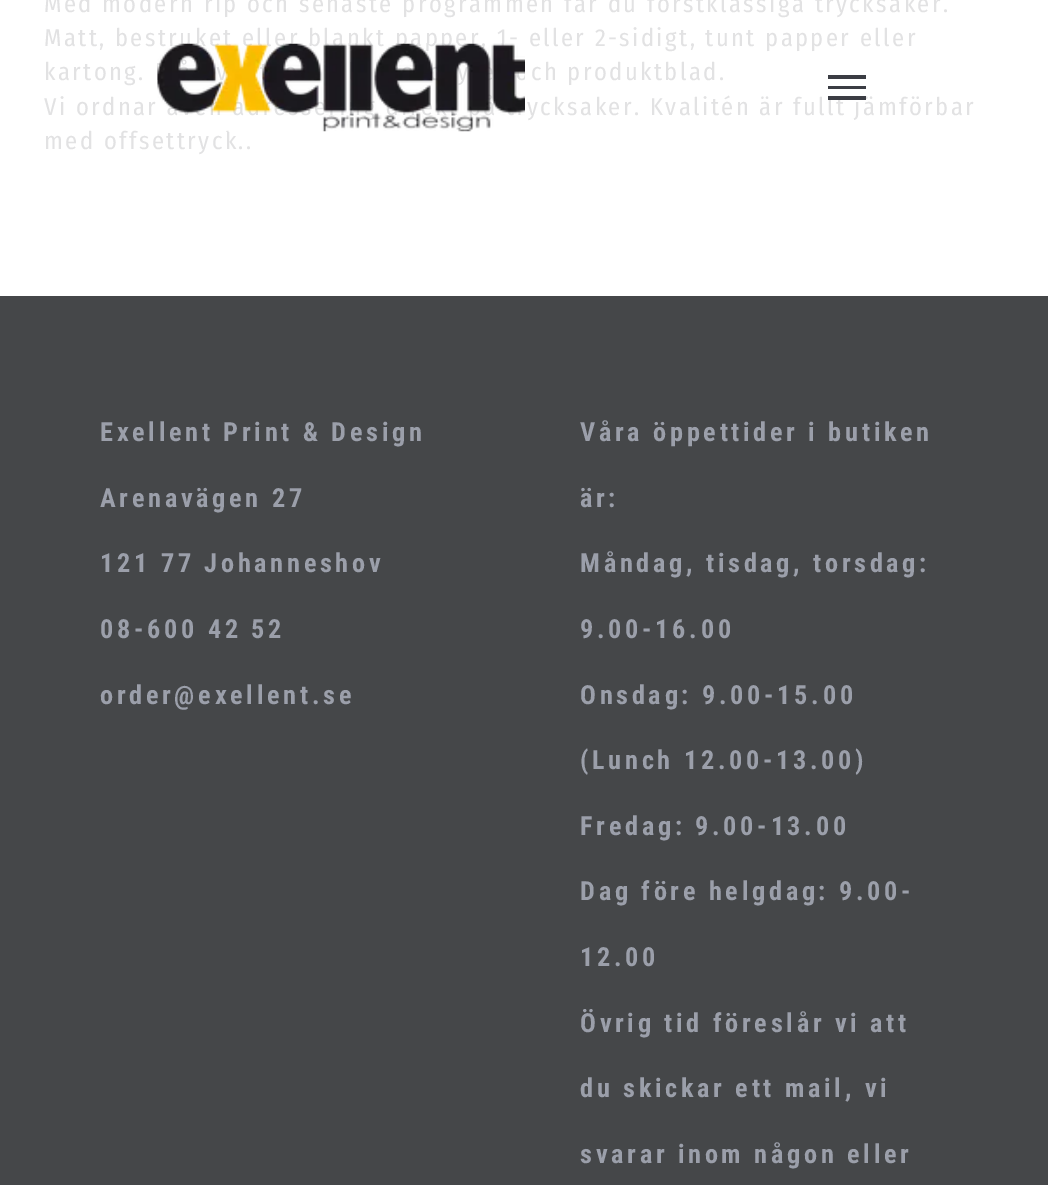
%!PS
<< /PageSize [1048 1185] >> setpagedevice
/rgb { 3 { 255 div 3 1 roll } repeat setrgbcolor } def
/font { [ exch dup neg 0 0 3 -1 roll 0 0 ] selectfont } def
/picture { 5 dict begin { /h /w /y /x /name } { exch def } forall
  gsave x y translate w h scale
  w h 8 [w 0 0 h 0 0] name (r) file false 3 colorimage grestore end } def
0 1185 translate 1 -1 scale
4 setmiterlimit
255 255 255 rgb
0 0 1048 1185 rectfill
59 61 68 rgb
828 75 38 4 rectfill
828 86 38 3 rectfill
69 71 73 rgb
0 296 1048 889 rectfill
/FiraSansCondensed-Regular 24.5 font
226 226 227 rgb
44 12 moveto 2.45 0 (Med modern rip och senaste programmen får du förstklassiga trycksaker.) ashow
44 46 moveto 2.45 0 (Matt, bestruket eller blankt papper, 1- eller 2-sidigt, tunt papper eller) ashow
44 80 moveto 2.45 0 (kartong.) ashow
457 80 moveto 2.45 0 (y) ashow
531 80 moveto 2.45 0 (ch produktblad.) ashow
44 115 moveto 2.45 0 (Vi ordnar) ashow
314 115 moveto 2.45 0 (e) ashow
527 115 moveto 2.45 0 (ycksaker. Kvalitén är fullt jämförbar) ashow
44 149 moveto 2.45 0 (med offsettryck..) ashow
(img_01.rgb) 157 43 368 89 picture
59 61 68 rgb
828 96 38 4 rectfill
/RobotoCondensed-Bold 26.25 font
155 159 170 rgb
100 441 moveto 3.7 0 (Exellent Print & Design) ashow
100 507 moveto 3.7 0 (Arenavägen 27) ashow
100 572 moveto 3.7 0 (121 77 Johanneshov) ashow
100 638 moveto 3.7 0 (08-600 42 52) ashow
100 704 moveto 3.7 0 (order@exellent.se) ashow
580 441 moveto 3.7 0 (Våra öppettider i butiken) ashow
580 507 moveto 3.7 0 (är:) ashow
580 572 moveto 3.7 0 (Måndag, tisdag, torsdag:) ashow
580 638 moveto 3.7 0 (9.00-16.00) ashow
580 704 moveto 3.7 0 (Onsdag: 9.00-15.00) ashow
580 769 moveto 3.7 0 (\(Lunch 12.00-13.00\)) ashow
580 835 moveto 3.7 0 (Fredag: 9.00-13.00) ashow
580 900 moveto 3.7 0 (Dag före helgdag: 9.00-) ashow
580 966 moveto 3.7 0 (12.00) ashow
580 1032 moveto 3.7 0 (Övrig tid föreslår vi att) ashow
580 1097 moveto 3.7 0 (du skickar ett mail, vi) ashow
580 1163 moveto 3.7 0 (svarar inom någon eller) ashow
showpage
